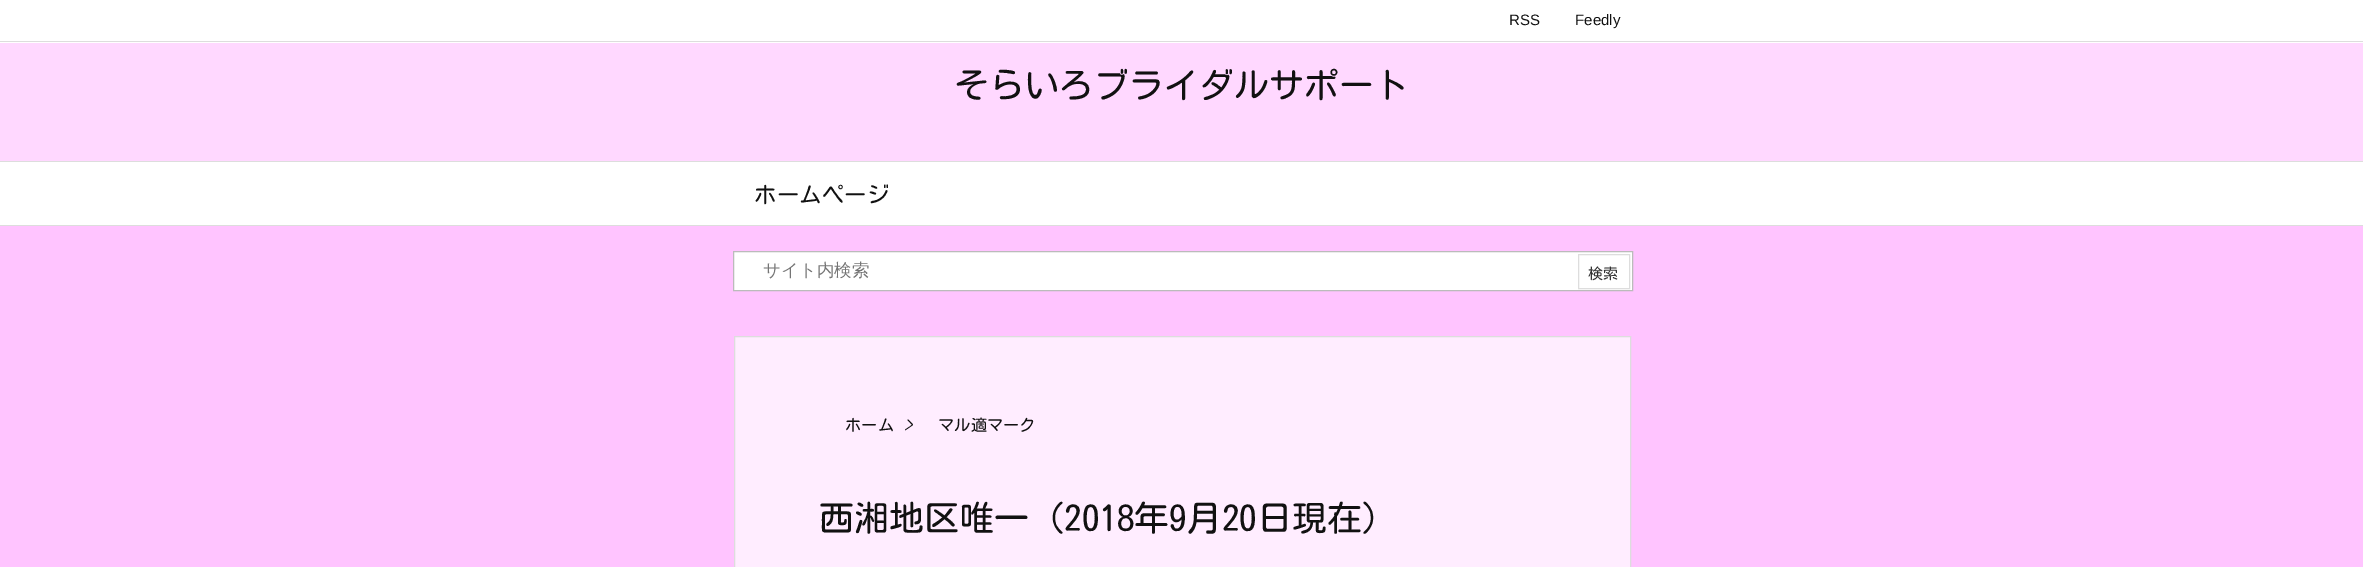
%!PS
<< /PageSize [2363 567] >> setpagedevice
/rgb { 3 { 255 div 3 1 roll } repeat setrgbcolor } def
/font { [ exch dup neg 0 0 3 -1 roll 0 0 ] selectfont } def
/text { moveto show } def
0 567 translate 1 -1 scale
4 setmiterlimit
255 196 255 rgb
0 0 2363 567 rectfill
255 255 255 rgb
0 0 2363 43 rectfill
221 221 221 rgb
0 41 2363 1 rectfill
255 255 255 rgb
0 162 2363 63 rectfill
221 221 221 rgb
0 161 2363 1 rectfill
0 225 2363 1 rectfill
255 216 255 rgb
0 43 2363 118 rectfill
255 255 255 rgb
733.5 251.5 moveto 899 0 rlineto 0 39 rlineto -899 0 rlineto closepath gsave fill grestore
187 187 187 rgb
stroke
221 221 221 rgb
1578.5 254.5 51 34 rectstroke
255 237 255 rgb
734.5 336.5 moveto 896 0 rlineto 0 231 rlineto -896 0 rlineto closepath gsave fill grestore
221 221 221 rgb
stroke
/LiberationSans-Regular 15 font
17 17 17 rgb
(RSS) 1509 25 text
(Feedly) 1575 25 text
/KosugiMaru-Regular 22.5 font
(ホームページ) 754 203 text
/KosugiMaru-Regular 35 font
(そらいろブライダルサポート) 954 98 text
/WenQuanYiZenHei-Medium 17.5 font
117 117 117 rgb
(サイト内検索) 763 276 text
/KosugiMaru-Regular 15 font
51 51 51 rgb
(検索) 1588 279 text
/KosugiMaru-Regular 16.25 font
17 17 17 rgb
(ホーム) 845 431 text
/KosugiMaru-Italic 16.25 font
(>) 904 431 text
/KosugiMaru-Regular 16.25 font
(マル適マーク) 938 431 text
/KosugiMaru-Regular 35 font
(西湘地区唯一（2018年9月20日現在）) 819 531 text
showpage
